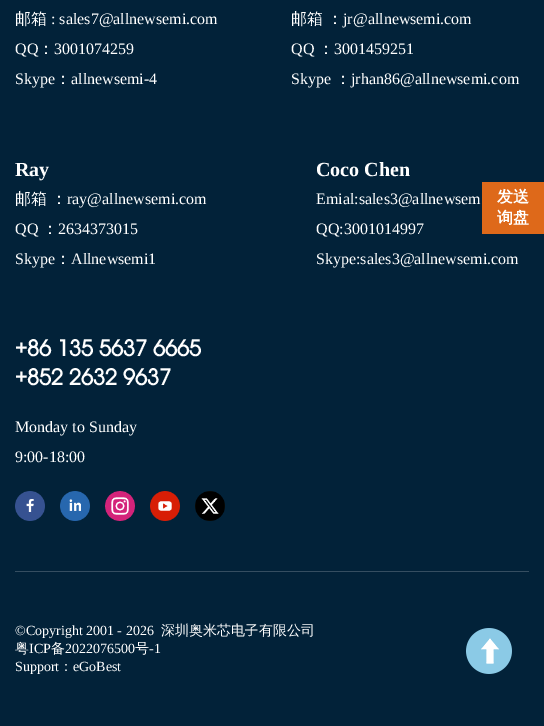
%!PS
<< /PageSize [544 726] >> setpagedevice
/rgb { 3 { 255 div 3 1 roll } repeat setrgbcolor } def
/font { [ exch dup neg 0 0 3 -1 roll 0 0 ] selectfont } def
/text { moveto show } def
/picture { 5 dict begin { /h /w /y /x /name } { exch def } forall
  gsave x y translate w h scale
  w h 8 [w 0 0 h 0 0] name (r) file false 3 colorimage grestore end } def
0 726 translate 1 -1 scale
4 setmiterlimit
2 34 57 rgb
0 0 544 726 rectfill
53 78 97 rgb
15 571 514 1 rectfill
(img_01.rgb) 15 491 30 30 picture
(img_02.rgb) 60 491 30 30 picture
(img_03.rgb) 105 491 30 30 picture
(img_04.rgb) 150 491 30 30 picture
(img_05.rgb) 195 491 30 30 picture
222 105 26 rgb
482 182 62 52 rectfill
(img_06.rgb) 466 628 46 46 picture
/WenQuanYiZenHei-Medium 16 font
255 255 255 rgb
(邮箱) 15 24 text
/LiberationSerif-Regular 16 font
(: sales7@allnewsemi.com) 51 24 text
(QQ) 15 54 text
/WenQuanYiZenHei-Medium 16 font
(：) 38 54 text
/LiberationSerif-Regular 16 font
(3001074259) 54 54 text
(Skype) 15 84 text
/WenQuanYiZenHei-Medium 16 font
(：) 55 84 text
/LiberationSerif-Regular 16 font
(allnewsemi-4) 71 84 text
/WenQuanYiZenHei-Medium 16 font
291 24 moveto -1 0 32 (邮箱 ：) widthshow
/LiberationSerif-Regular 16 font
(jr@allnewsemi.com) 343 24 text
(QQ) 291 54 text
/WenQuanYiZenHei-Medium 16 font
(：) 318 54 text
/LiberationSerif-Regular 16 font
(3001459251) 334 54 text
(Skype) 291 84 text
/WenQuanYiZenHei-Medium 16 font
(：) 335 84 text
/LiberationSerif-Regular 16 font
(jrhan86@allnewsemi.com) 351 84 text
/LiberationSerif-Bold 20 font
(Ray) 15 176 text
/WenQuanYiZenHei-Medium 16 font
15 204 moveto -1 0 32 (邮箱 ：) widthshow
/LiberationSerif-Regular 16 font
(ray@allnewsemi.com) 67 204 text
(QQ) 15 234 text
/WenQuanYiZenHei-Medium 16 font
(：) 42 234 text
/LiberationSerif-Regular 16 font
(2634373015) 58 234 text
(Skype) 15 264 text
/WenQuanYiZenHei-Medium 16 font
(：) 55 264 text
/LiberationSerif-Regular 16 font
(Allnewsemi1) 71 264 text
/LiberationSerif-Bold 20 font
(Coco Chen) 316 176 text
/LiberationSerif-Regular 16 font
(Emial:sales3@allnewsem) 316 204 text
(QQ:3001014997) 316 234 text
(Skype:sales3@allnewsemi.com) 316 264 text
/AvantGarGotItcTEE-Bold 24 font
(+86 135 5637 6665) 15 356 text
(+852 2632 9637) 15 385 text
/LiberationSerif-Regular 16 font
(Monday to Sunday) 15 432 text
(9:00-18:00) 15 462 text
/LiberationSerif-Regular 14 font
(©Copyright 2001 - 2026) 15 635 text
/WenQuanYiZenHei-Medium 14 font
(深圳奥米芯电) 161 635 text
/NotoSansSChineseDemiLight-Light 14 font
(子) 245 635 text
/WenQuanYiZenHei-Medium 14 font
(有限公司) 259 635 text
(粤) 15 653 text
/LiberationSerif-Regular 14 font
(ICP) 29 653 text
/WenQuanYiZenHei-Medium 14 font
(备) 51 653 text
/LiberationSerif-Regular 14 font
(2022076500) 65 653 text
/WenQuanYiZenHei-Medium 14 font
(号) 135 653 text
/LiberationSerif-Regular 14 font
(-1) 149 653 text
(Support) 15 671 text
/WenQuanYiZenHei-Medium 14 font
(：) 59 671 text
/LiberationSerif-Regular 14 font
(eGoBest) 73 671 text
/WenQuanYiZenHei-Bold 16 font
(发送) 497 202 text
(询盘) 497 223 text
showpage
